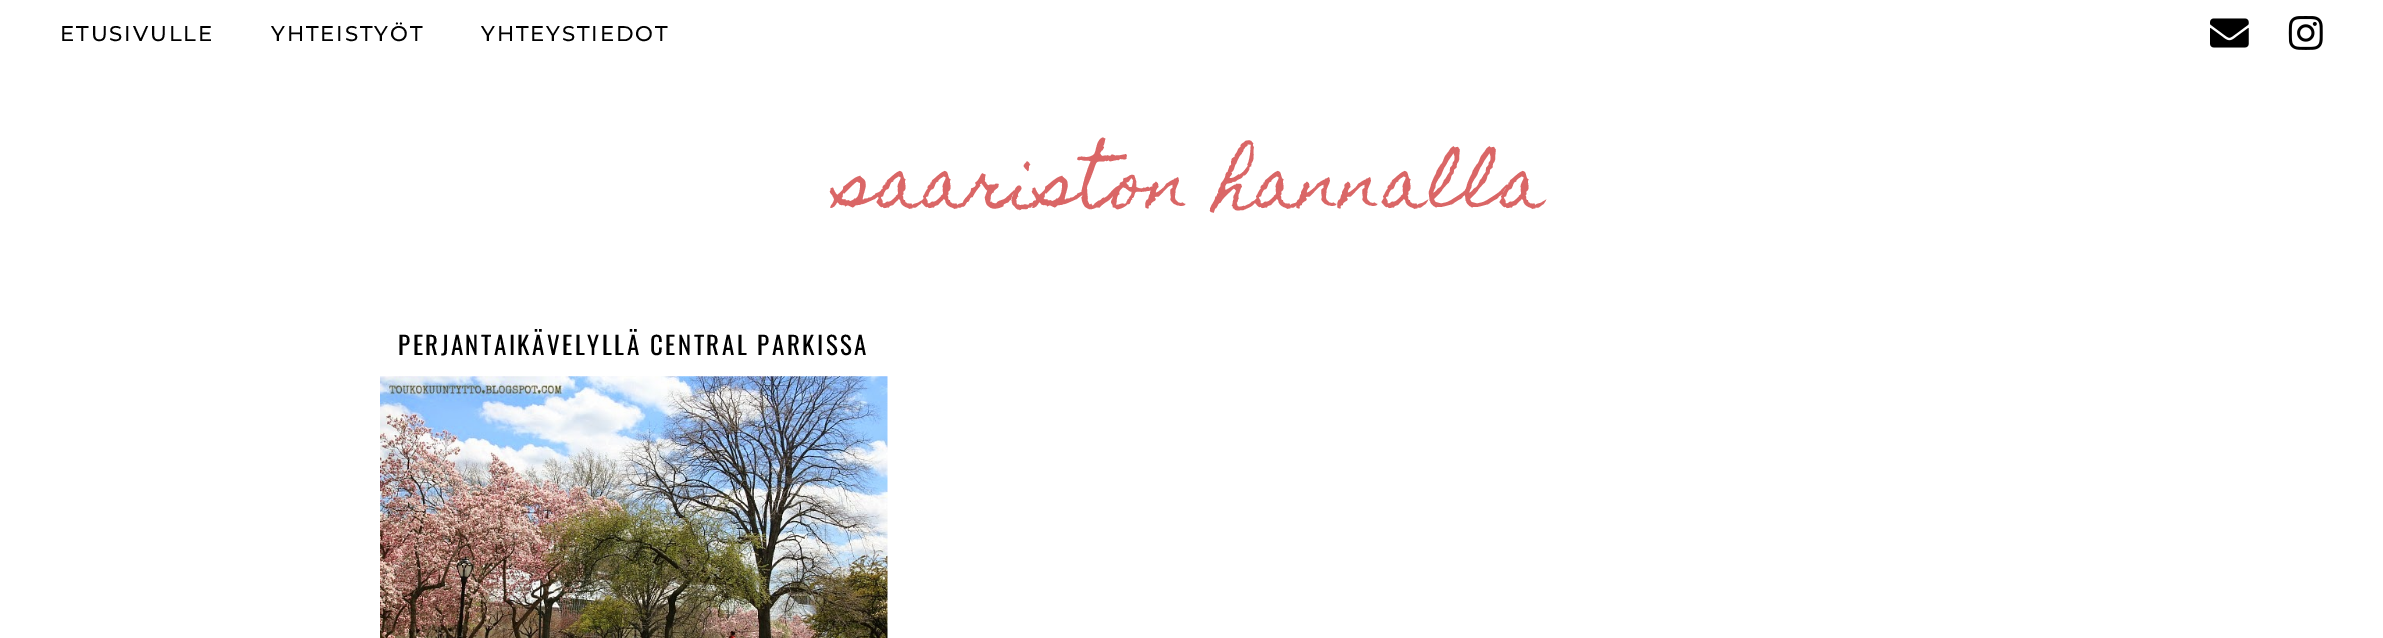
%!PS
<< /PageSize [2383 638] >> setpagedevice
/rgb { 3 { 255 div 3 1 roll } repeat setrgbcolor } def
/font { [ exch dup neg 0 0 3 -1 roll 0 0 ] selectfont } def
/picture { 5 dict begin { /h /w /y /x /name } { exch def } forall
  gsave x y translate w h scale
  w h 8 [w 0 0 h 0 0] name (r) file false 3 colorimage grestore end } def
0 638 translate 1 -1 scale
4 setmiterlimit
255 255 255 rgb
0 0 2383 638 rectfill
(img_01.rgb) 2210 18 39 30 picture
(img_02.rgb) 2288 16 35 34 picture
(img_03.rgb) 380 376 508 262 picture
/Montserrat-Thin 21.25 font
0 0 0 rgb
60 41 moveto 1.9 0 (ETUSIVULLE) ashow
271 41 moveto 1.9 0 (YHTEISTYÖT) ashow
481 41 moveto 1.9 0 (YHTEYSTIEDOT) ashow
/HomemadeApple-Regular 67.5 font
218 102 102 rgb
838 206 moveto 1.25 0 (saariston hannalla) ashow
/Oswald-Regular 25 font
0 0 0 rgb
398 355 moveto 2.5 0 (PERJANTAIKÄVELYLLÄ CENTRAL PARKISSA) ashow
showpage
